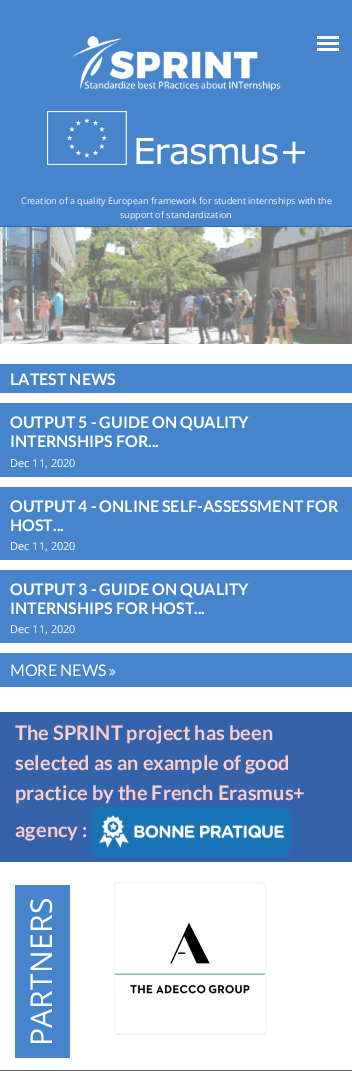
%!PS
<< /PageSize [352 1071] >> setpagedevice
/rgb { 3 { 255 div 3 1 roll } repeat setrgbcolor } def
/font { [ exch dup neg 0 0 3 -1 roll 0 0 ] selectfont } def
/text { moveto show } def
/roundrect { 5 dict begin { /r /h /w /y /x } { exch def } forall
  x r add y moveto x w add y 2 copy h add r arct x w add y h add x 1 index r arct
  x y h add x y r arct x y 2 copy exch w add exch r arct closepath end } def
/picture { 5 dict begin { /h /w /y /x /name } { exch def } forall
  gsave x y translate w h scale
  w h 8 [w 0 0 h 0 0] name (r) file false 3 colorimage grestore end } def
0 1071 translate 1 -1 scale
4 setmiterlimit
255 255 255 rgb
0 0 352 1071 rectfill
70 132 203 rgb
0 0 352 226 rectfill
255 255 255 rgb
317 36 22 3 rectfill
317 42 22 3 rectfill
317 48 22 3 rectfill
(img_01.rgb) 72 36 209 55 picture
(img_02.rgb) 47 111 258 54 picture
53 99 171 rgb
0 226 352 1 rectfill
(img_03.rgb) 0 227 352 117 picture
(img_04.rgb) 0 227 352 117 picture
70 132 203 rgb
0 364 352 29 rectfill
0 403 352 74 rectfill
0 487 352 73 rectfill
0 570 352 73 rectfill
0 653 352 34 rectfill
(img_05.rgb) 109 668 7 8 picture
53 99 171 rgb
0 712 352 150 rectfill
(img_06.rgb) 91 807 200 50 picture
(img_07.rgb) 15 885 55 173 picture
243 243 243 rgb
114.5 882.5 151 152 3.5 roundrect stroke
116 1033 148 1 rectfill
(img_08.rgb) 115 922 150 72 picture
96 92 91 rgb
0 1070 352 1 rectfill
/OpenSans-Regular 9 font
255 255 255 rgb
(Creation of a quality European framework for student internships with the) 21 204 text
(support of standardization) 120 218 text
/Lato-Bold 16 font
(LATEST NEWS) 10 385 text
(OUTPUT 5 - GUIDE ON QUALITY) 10 428 text
(INTERNSHIPS FOR...) 10 447 text
/OpenSans-Regular 11 font
(Dec 11, 2020) 10 467 text
/Lato-Bold 16 font
(OUTPUT 4 - ONLINE SELF-ASSESSMENT FOR) 10 512 text
(HOST...) 10 531 text
/OpenSans-Regular 11 font
(Dec 11, 2020) 10 550 text
/Lato-Bold 16 font
(OUTPUT 3 - GUIDE ON QUALITY) 10 595 text
(INTERNSHIPS FOR HOST...) 10 614 text
/OpenSans-Regular 11 font
(Dec 11, 2020) 10 633 text
/Lato-Regular 16 font
(MORE NEWS) 10 676 text
/Lato-Bold 20 font
255 204 204 rgb
(The SPRINT project has been) 15 740 text
(selected as an example of good) 15 770 text
(practice by the French Erasmus+) 15 800 text
(agency :) 15 837 text
showpage
